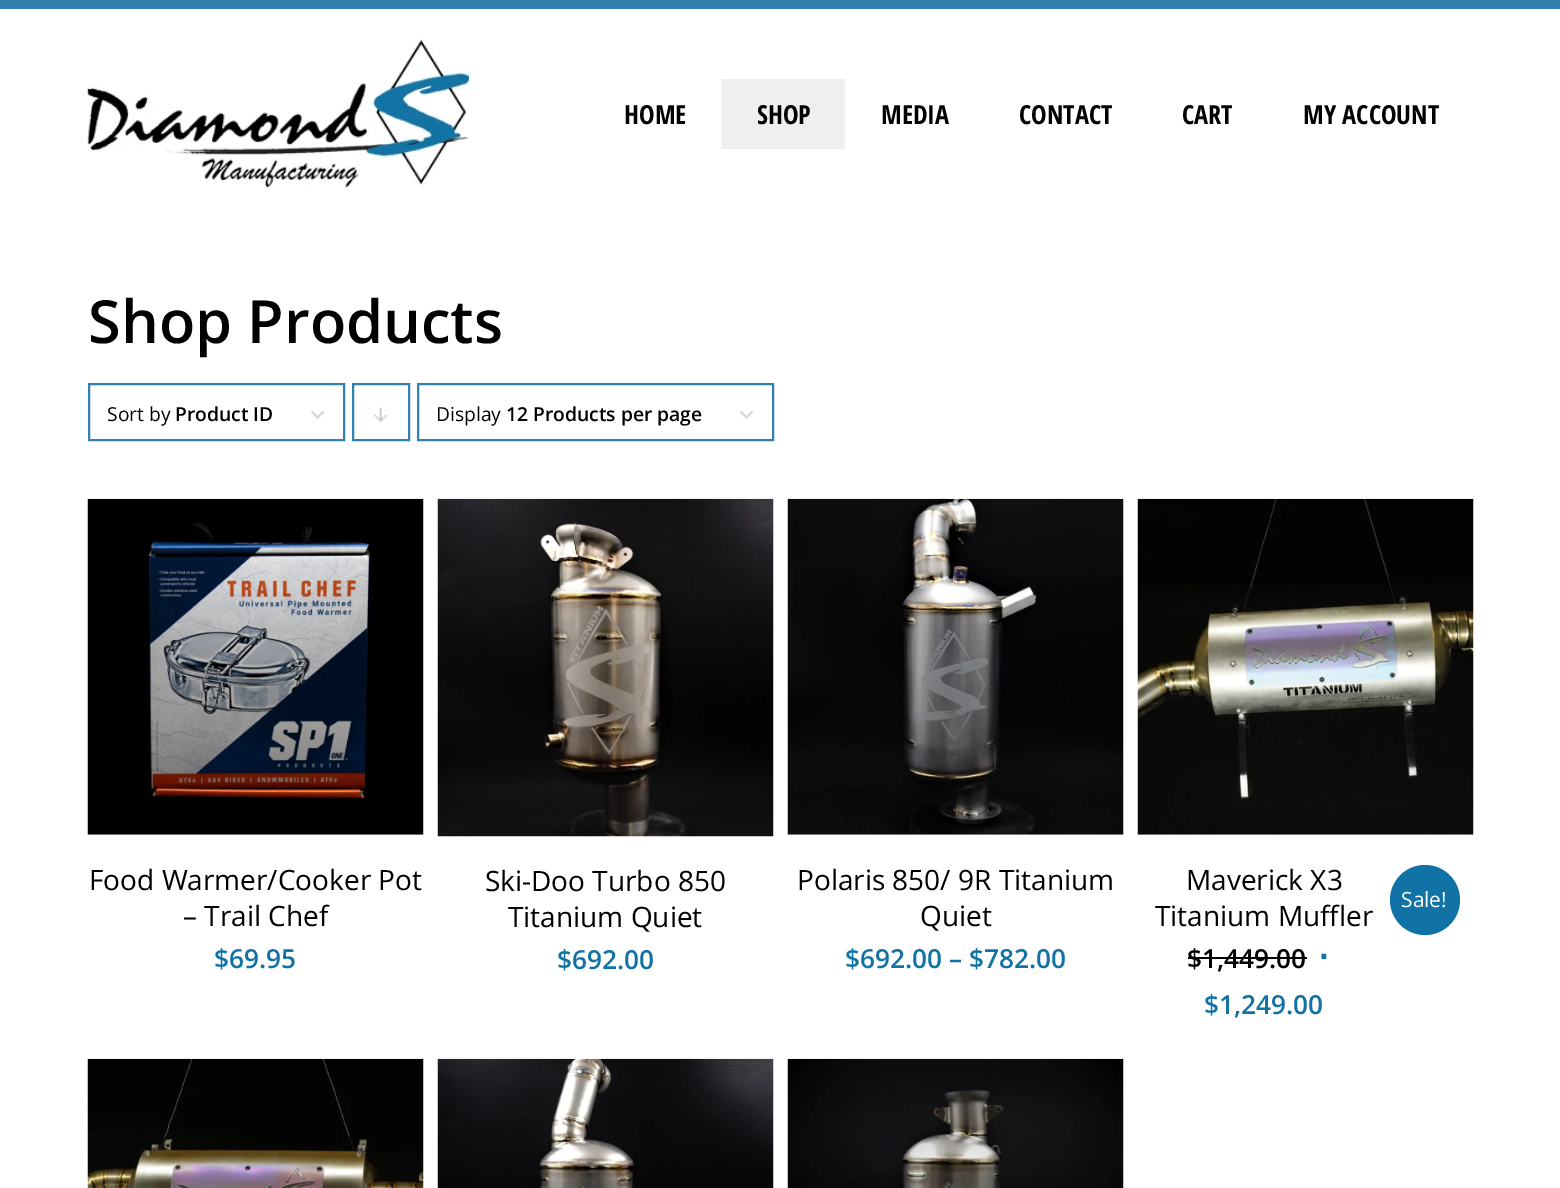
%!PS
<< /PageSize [1560 1188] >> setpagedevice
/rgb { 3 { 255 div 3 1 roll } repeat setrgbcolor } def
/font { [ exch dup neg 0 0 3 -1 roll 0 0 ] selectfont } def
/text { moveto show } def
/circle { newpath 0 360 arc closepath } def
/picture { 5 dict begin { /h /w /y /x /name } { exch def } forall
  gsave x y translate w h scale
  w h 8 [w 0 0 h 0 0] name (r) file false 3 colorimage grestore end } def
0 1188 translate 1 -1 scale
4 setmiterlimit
255 255 255 rgb
0 0 1560 1188 rectfill
50 128 173 rgb
0 0 1560 9 rectfill
(img_01.rgb) 87 39 382 149 picture
239 239 239 rgb
721 79 124 70 rectfill
(img_02.rgb) 311 411 14 8 picture
50 128 173 rgb
2 setlinewidth
89 384 255 56 rectstroke
(img_03.rgb) 374 407 14 16 picture
353 384 56 56 rectstroke
(img_04.rgb) 740 411 13 8 picture
418 384 355 56 rectstroke
(img_05.rgb) 87 498 337 337 picture
(img_06.rgb) 437 498 337 339 picture
(img_07.rgb) 787 498 337 337 picture
(img_08.rgb) 1137 498 337 337 picture
17 114 166 rgb
1425 900 35 circle fill
0 0 0 rgb
1188 957 119 2 rectfill
(img_09.rgb) 87 1058 337 130 picture
(img_10.rgb) 437 1058 337 130 picture
(img_11.rgb) 787 1058 337 130 picture
/OpenSansCondensed-Bold 26.25 font
(HOME) 624 124 text
(SHOP) 757 124 text
(MEDIA) 881 124 text
(CONTACT) 1019 124 text
(CART) 1182 124 text
(MY ACCOUNT) 1303 124 text
/OpenSans-SemiBold 59.5 font
(Shop Products) 88 343 text
/OpenSans-Regular 19.25 font
(Sort by) 107 421 text
/OpenSans-SemiBold 19.25 font
(Product ID) 175 421 text
/OpenSans-Regular 19.25 font
(Display) 436 421 text
/OpenSans-SemiBold 19.25 font
(12 Products per page) 506 421 text
/OpenSans-Regular 28 font
(Food Warmer/Cooker Pot) 89 890 text
(– Trail Chef) 183 926 text
/OpenSans-SemiBold 26.25 font
17 114 166 rgb
($69.95) 214 968 text
/OpenSans-Regular 28 font
0 0 0 rgb
(Ski-Doo Turbo 850) 485 891 text
(Titanium Quiet) 508 927 text
/OpenSans-SemiBold 26.25 font
17 114 166 rgb
($692.00) 557 969 text
/OpenSans-Regular 28 font
0 0 0 rgb
(Polaris 850/ 9R Titanium) 797 890 text
(Quiet) 920 926 text
/OpenSans-SemiBold 26.25 font
17 114 166 rgb
($692.00 – $782.00) 845 968 text
/OpenSans-Regular 28 font
0 0 0 rgb
(Maverick X3) 1186 890 text
(Titanium Muffler) 1155 926 text
/OpenSans-Regular 21 font
255 255 255 rgb
(Sale!) 1401 907 text
/OpenSans-SemiBold 26.25 font
0 0 0 rgb
($1,449.00) 1187 968 text
/LiberationSans-Bold 35 font
17 114 166 rgb
(∙) 1319 968 text
/OpenSans-SemiBold 26.25 font
($1,249.00) 1204 1014 text
showpage
